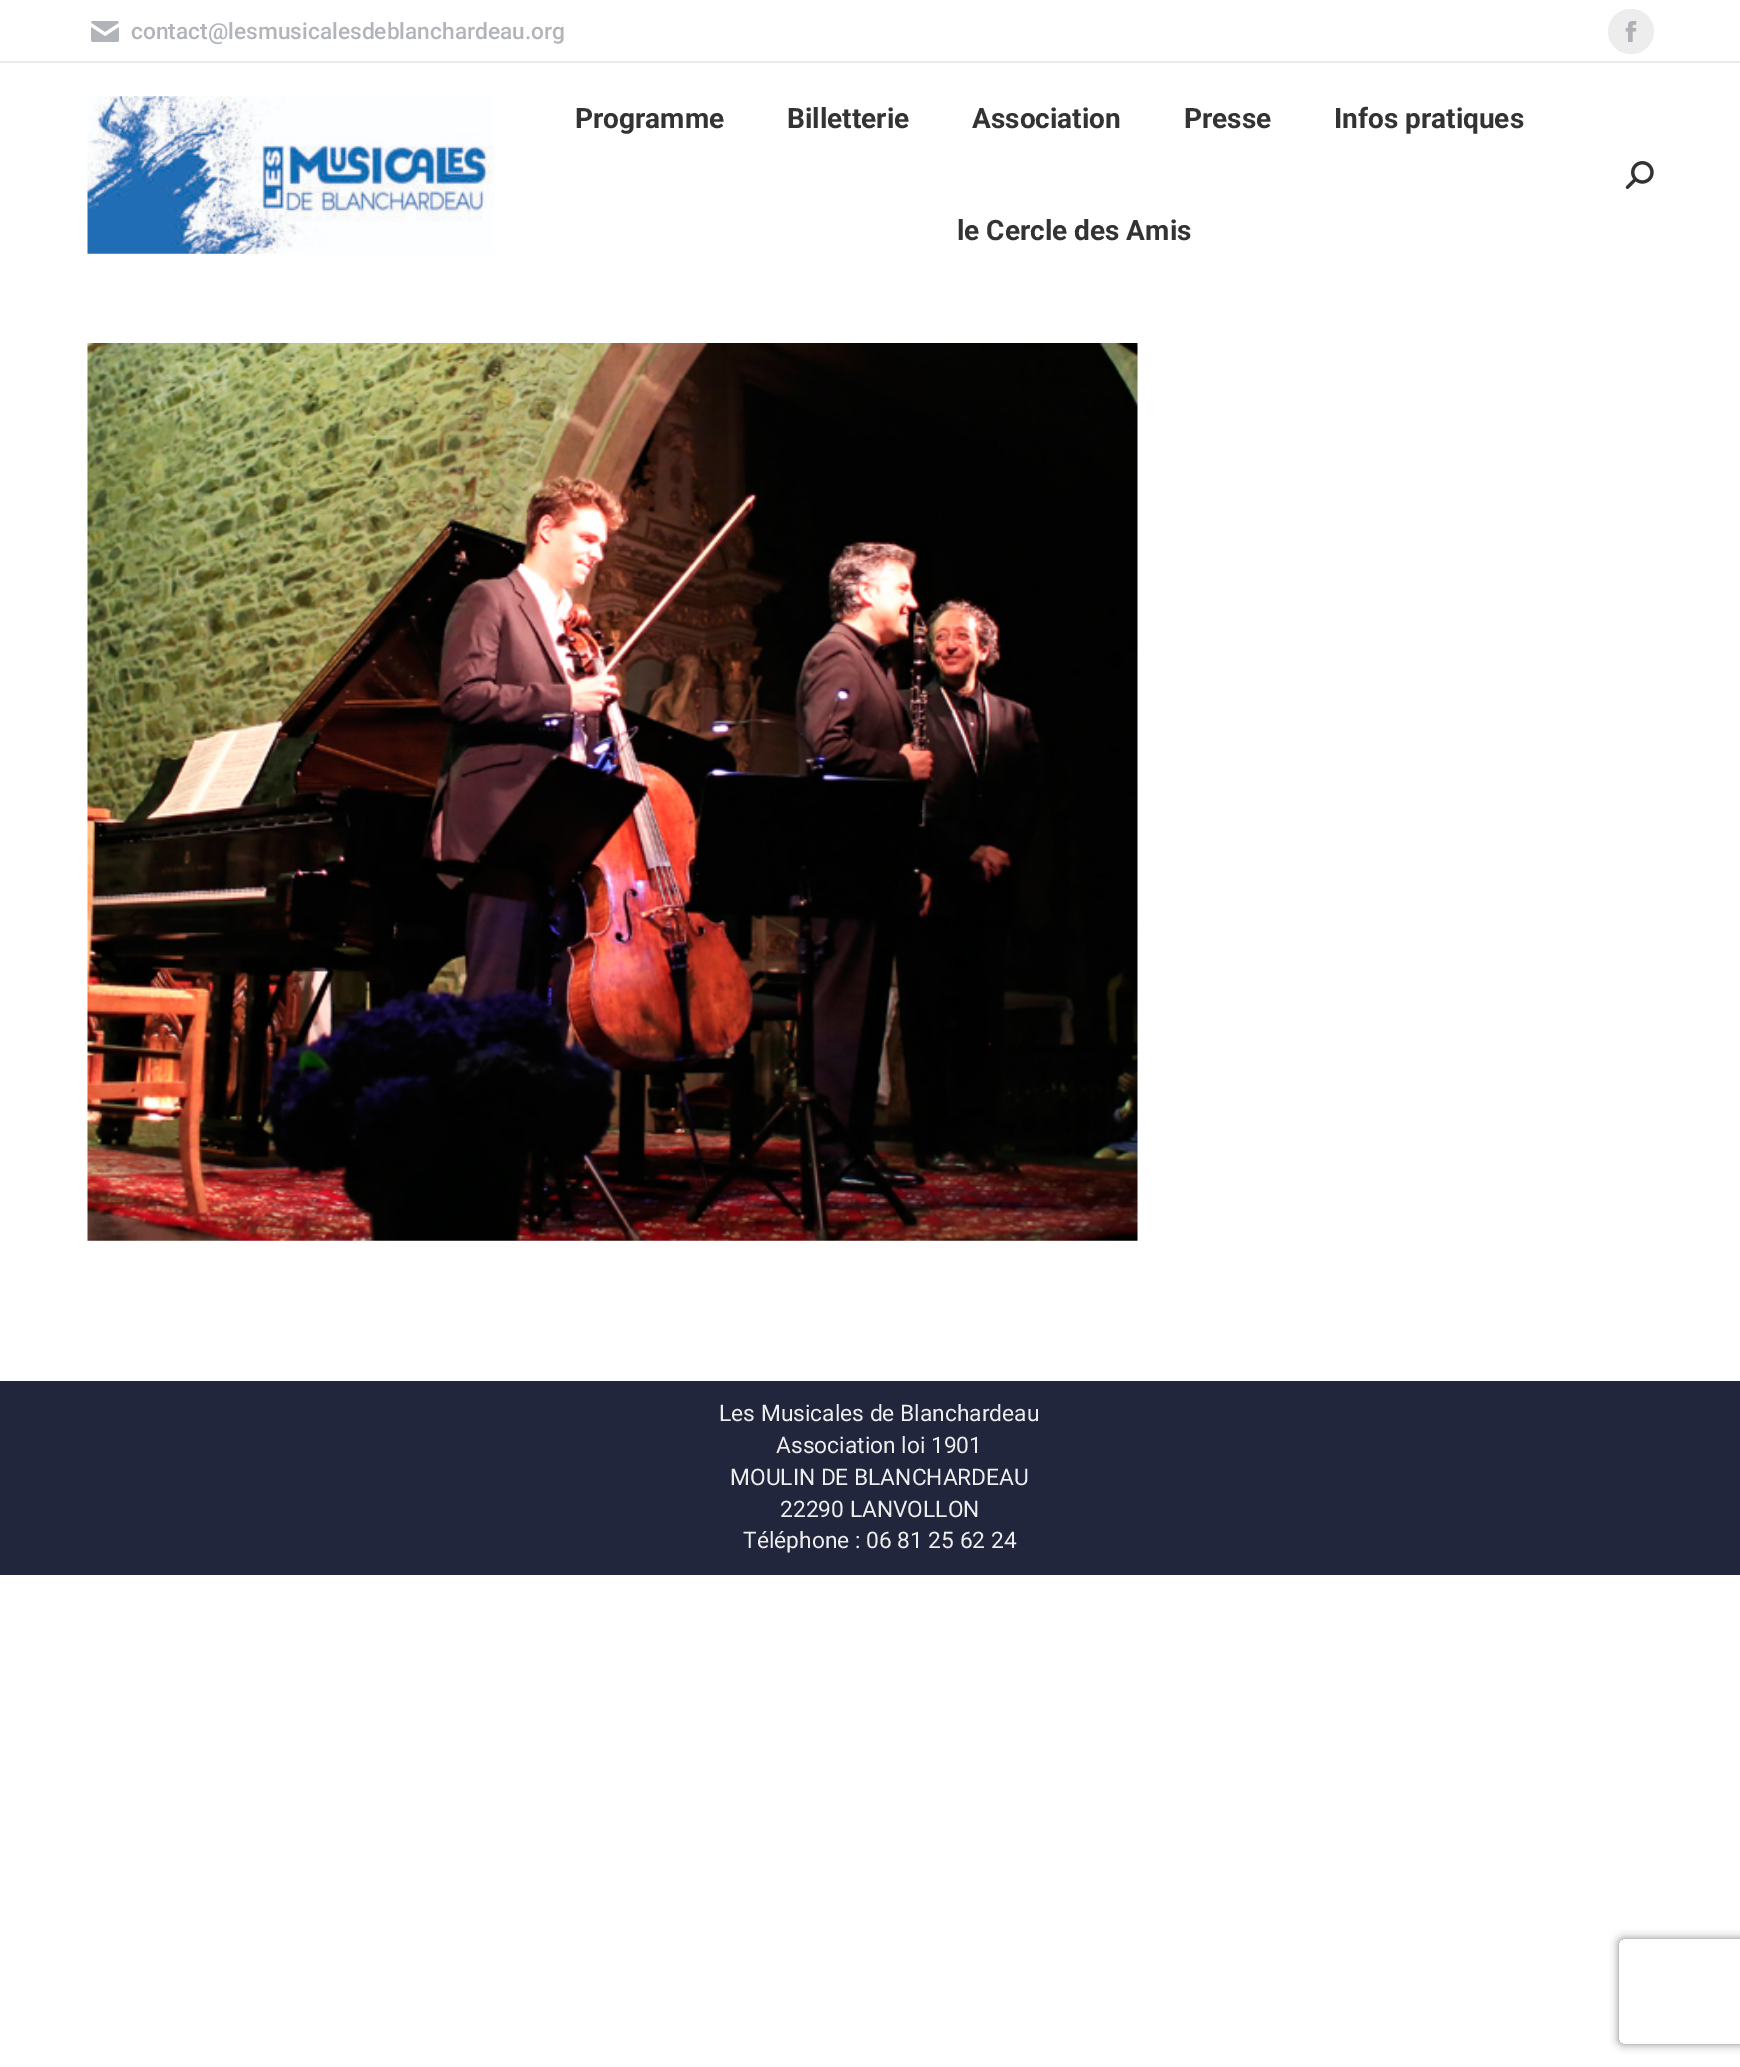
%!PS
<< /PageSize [1740 2067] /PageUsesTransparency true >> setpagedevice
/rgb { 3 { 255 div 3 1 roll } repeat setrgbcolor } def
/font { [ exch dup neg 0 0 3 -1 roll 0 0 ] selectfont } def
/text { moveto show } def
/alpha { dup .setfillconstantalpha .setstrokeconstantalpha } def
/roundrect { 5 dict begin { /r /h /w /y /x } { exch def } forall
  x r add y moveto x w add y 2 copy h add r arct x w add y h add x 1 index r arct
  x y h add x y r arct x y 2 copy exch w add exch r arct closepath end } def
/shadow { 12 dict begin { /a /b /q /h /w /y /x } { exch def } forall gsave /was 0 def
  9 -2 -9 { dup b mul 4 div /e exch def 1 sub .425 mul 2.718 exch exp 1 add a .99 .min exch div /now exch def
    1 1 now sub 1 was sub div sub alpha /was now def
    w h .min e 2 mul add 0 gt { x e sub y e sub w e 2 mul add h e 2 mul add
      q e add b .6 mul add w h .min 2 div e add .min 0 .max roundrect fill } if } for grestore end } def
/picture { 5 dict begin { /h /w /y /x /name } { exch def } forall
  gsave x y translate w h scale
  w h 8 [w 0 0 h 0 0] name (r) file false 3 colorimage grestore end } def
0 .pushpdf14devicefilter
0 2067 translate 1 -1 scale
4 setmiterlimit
255 255 255 rgb
0 0 1740 2067 rectfill
(img_01.rgb) 91 21 28 21 picture
237 237 237 rgb
1608 9 46 45 22.5 roundrect fill
(img_02.rgb) 1625 21 12 21 picture
233 233 233 rgb
0 61 1740 2 rectfill
(img_03.rgb) 87 96 407 158 picture
(img_04.rgb) 1625 161 29 28 picture
(img_05.rgb) 87 343 1051 898 picture
33 38 61 rgb
0 1381 1740 194 rectfill
gsave
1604 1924 moveto 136 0 rlineto 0 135 rlineto -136 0 rlineto closepath 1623 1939 moveto 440 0 rlineto 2 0 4 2 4 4 rcurveto 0 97 rlineto 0 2 -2 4 -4 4 rcurveto -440 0 rlineto -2 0 -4 -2 -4 -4 rcurveto 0 -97 rlineto 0 -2 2 -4 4 -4 rcurveto closepath eoclip newpath
128 128 128 rgb
1619 1939 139 105 4 4.5 1 shadow
grestore
/Roboto-Medium 22.75 font
177 180 184 rgb
(contact@lesmusicalesdeblanchardeau.org) 131 39 text
/Roboto-Bold 28 font
51 51 51 rgb
(Programme) 575 128 text
(Billetterie) 787 128 text
(Association) 972 128 text
(Presse) 1184 128 text
(Infos pratiques) 1334 128 text
(le Cercle des Amis) 957 240 text
/Roboto-Regular 22.75 font
238 238 238 rgb
(Les Musicales de Blanchardeau) 719 1421 text
(Association loi 1901) 776 1453 text
(MOULIN DE BLANCHARDEAU) 730 1485 text
(22290 LANVOLLON) 780 1517 text
(Téléphone : 06 81 25 62 24) 743 1548 text
.poppdf14devicefilter showpage
